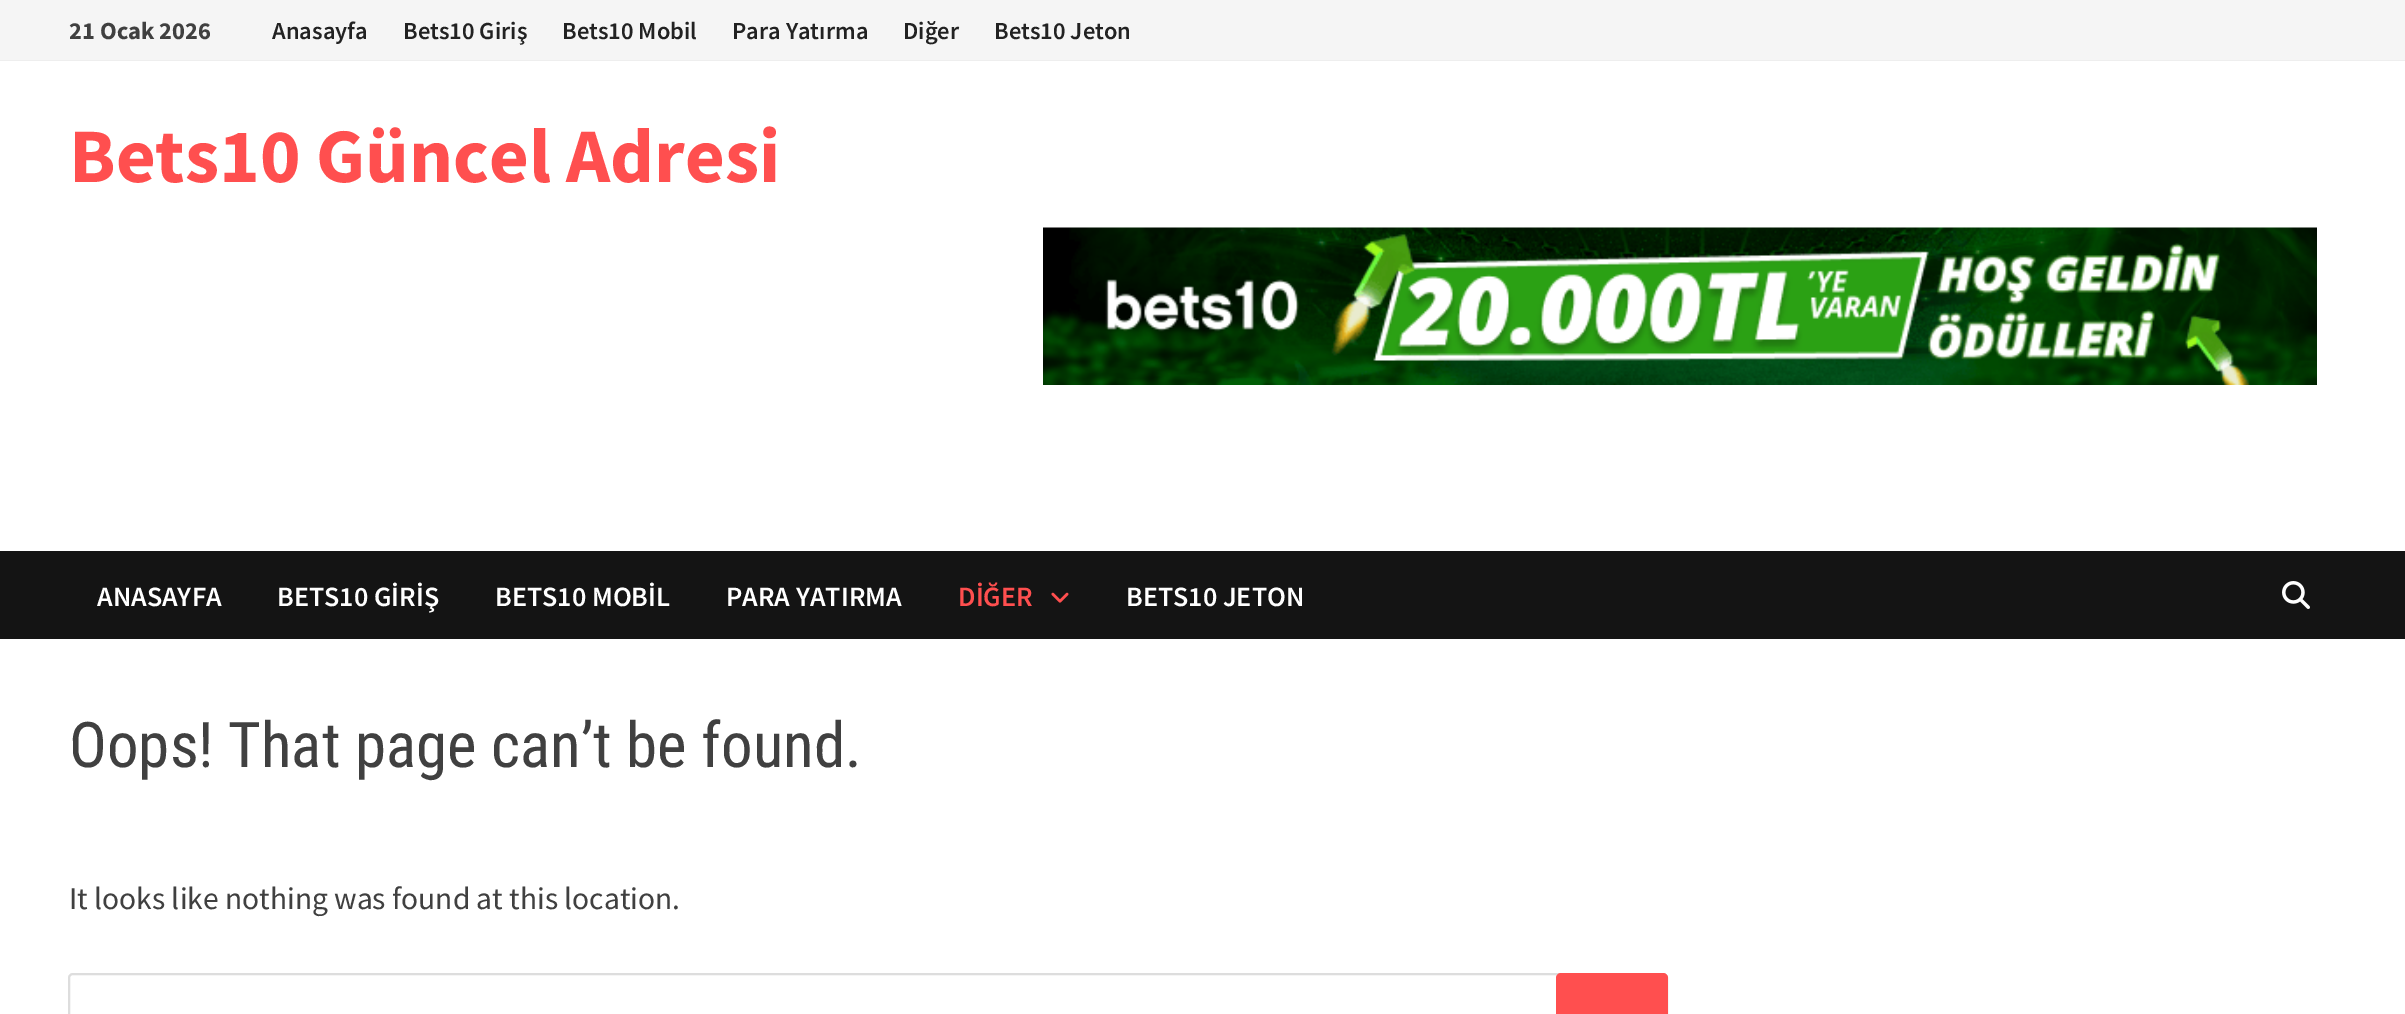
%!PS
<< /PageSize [2405 1014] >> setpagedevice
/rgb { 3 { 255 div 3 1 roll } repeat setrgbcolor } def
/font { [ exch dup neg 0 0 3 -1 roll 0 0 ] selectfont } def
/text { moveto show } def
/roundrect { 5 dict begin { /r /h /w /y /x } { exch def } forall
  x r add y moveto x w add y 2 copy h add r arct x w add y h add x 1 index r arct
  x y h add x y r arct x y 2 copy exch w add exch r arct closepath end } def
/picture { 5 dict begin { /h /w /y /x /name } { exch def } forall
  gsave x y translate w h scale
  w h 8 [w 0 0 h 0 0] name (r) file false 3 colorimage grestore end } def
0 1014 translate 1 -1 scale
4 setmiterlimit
255 255 255 rgb
0 0 2405 1014 rectfill
245 245 245 rgb
0 0 2405 60 rectfill
238 238 238 rgb
0 60 2405 1 rectfill
(img_01.rgb) 1043 227 1274 158 picture
20 20 20 rgb
0 551 2405 88 rectfill
(img_02.rgb) 1051 592 18 11 picture
(img_03.rgb) 2282 581 28 28 picture
221 221 221 rgb
2 setlinewidth
69 974 1598 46 4 roundrect stroke
255 79 79 rgb
1556 973 112 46 5 roundrect fill
/SourceSansPro-Bold 24.5 font
64 64 64 rgb
(21 Ocak 2026) 69 39 text
/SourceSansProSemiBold-SemiBold 24.5 font
34 34 34 rgb
(Anasayfa) 272 39 text
(Bets10 Giriş) 403 39 text
(Bets10 Mobil) 562 39 text
(Para Yatırma) 732 39 text
(Diğer) 903 39 text
(Bets10 Jeton) 994 39 text
/SourceSansPro-Bold 77 font
255 79 79 rgb
(Bets10 Güncel Adresi) 69 182 text
/SourceSansProSemiBold-SemiBold 28 font
255 255 255 rgb
(ANASAYFA) 97 606 text
(BETS10 GİRİŞ) 277 606 text
(BETS10 MOBİL) 495 606 text
(PARA YATIRMA) 726 606 text
255 79 79 rgb
(DİĞER) 958 606 text
255 255 255 rgb
(BETS10 JETON) 1126 606 text
/RobotoCondensed-Regular 63 font
64 64 64 rgb
(Oops! That page can’t be found.) 69 767 text
/SourceSansPro-Regular 31.5 font
(It looks like nothing was found at this location.) 69 909 text
showpage
